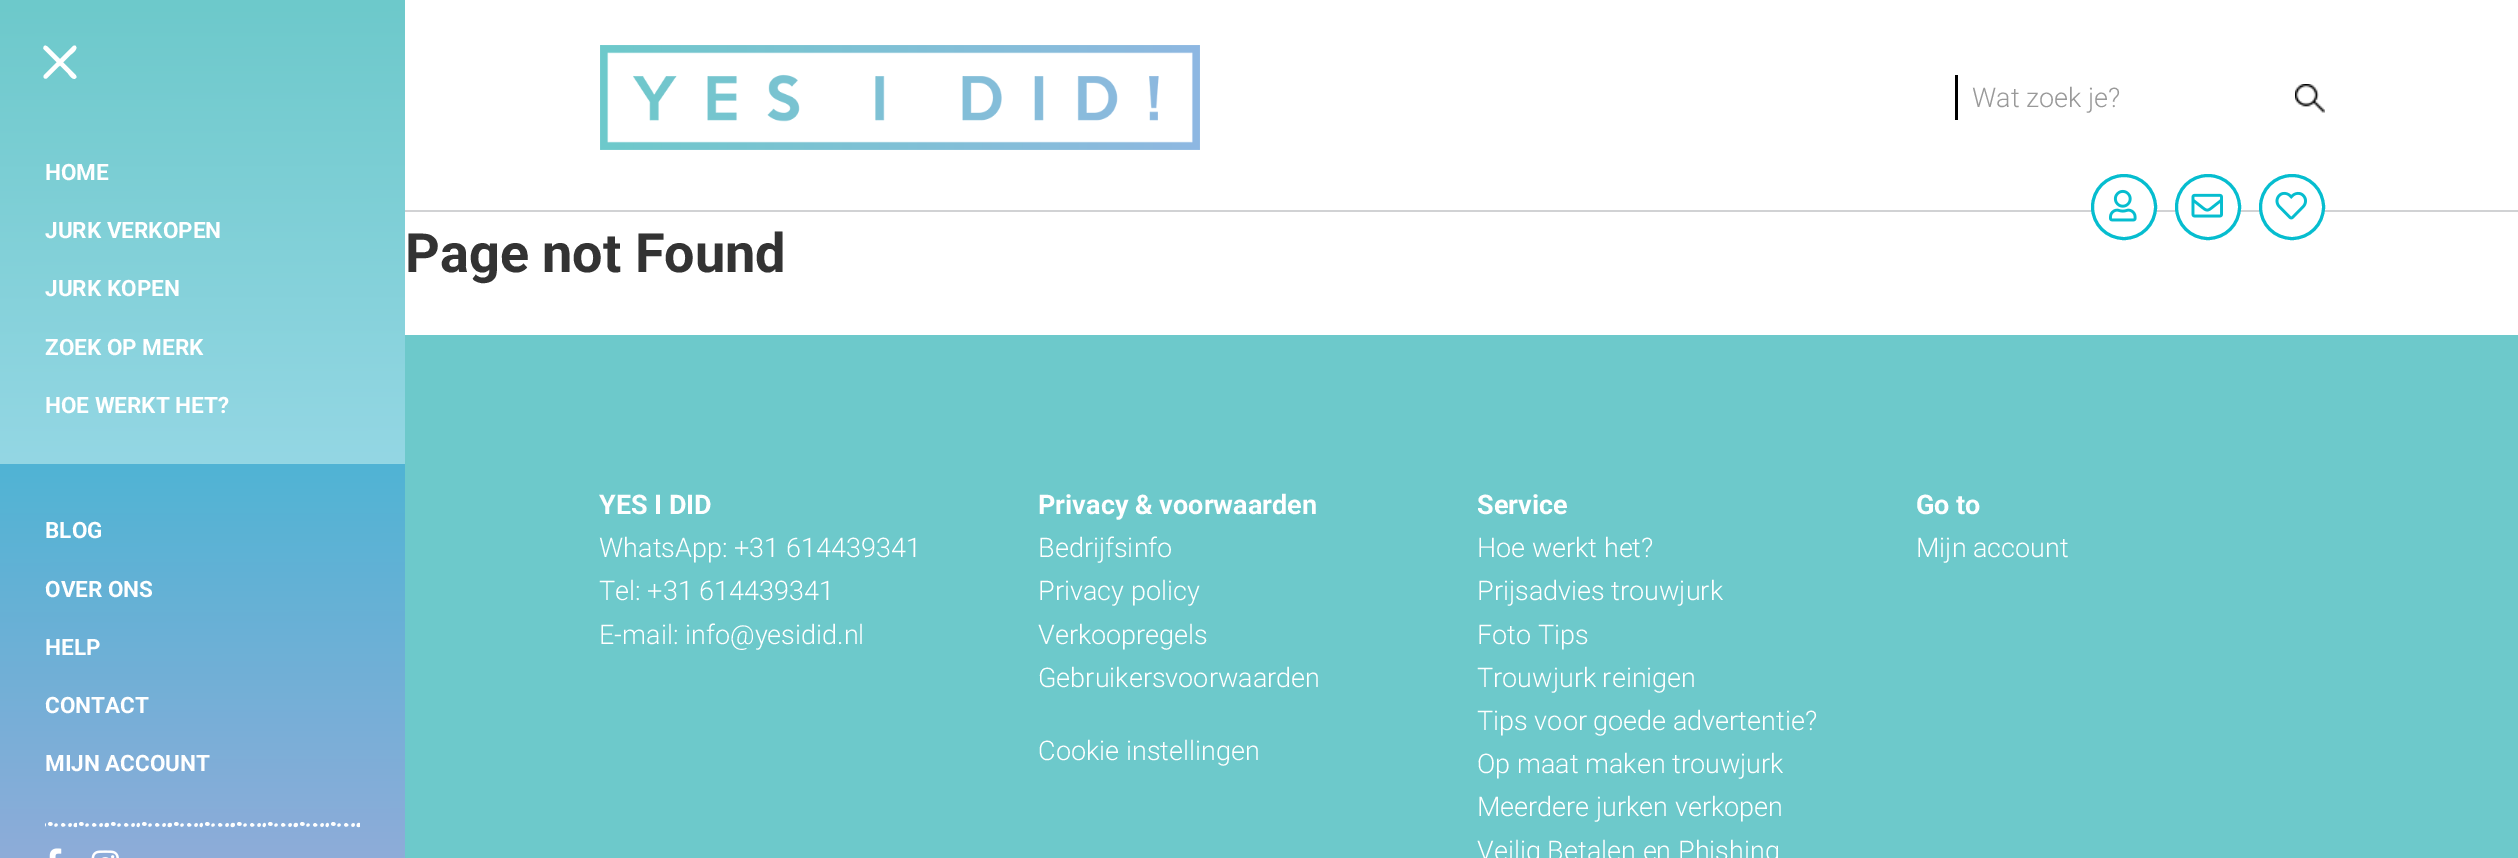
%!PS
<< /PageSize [2518 858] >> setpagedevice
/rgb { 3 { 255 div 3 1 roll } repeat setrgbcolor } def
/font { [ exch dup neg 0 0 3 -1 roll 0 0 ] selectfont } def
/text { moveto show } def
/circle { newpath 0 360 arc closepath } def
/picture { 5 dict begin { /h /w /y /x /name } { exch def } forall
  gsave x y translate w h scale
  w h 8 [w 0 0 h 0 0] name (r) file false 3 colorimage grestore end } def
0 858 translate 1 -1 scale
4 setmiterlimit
255 255 255 rgb
0 0 2518 858 rectfill
209 210 212 rgb
405 210 2113 2 rectfill
(img_01.rgb) 600 45 600 105 picture
0 0 0 rgb
1955 75 3 45 rectfill
(img_02.rgb) 2295 84 30 29 picture
gsave 0 464 moveto 405 0 rlineto 0 394 rlineto -405 0 rlineto closepath clip newpath
<< /ShadingType 2 /ColorSpace /DeviceRGB /Coords [202 0 203 858] /Extend [true true] /Function << /FunctionType 2 /Domain [0 1] /C0 [0.024 0.741 0.812] /C1 [0.557 0.675 0.851] /N 1 >> >> shfill grestore
gsave 0 0 moveto 405 0 rlineto 0 464 rlineto -405 0 rlineto closepath clip newpath
<< /ShadingType 2 /ColorSpace /DeviceRGB /Coords [202 0 203 464] /Extend [true true] /Function << /FunctionType 2 /Domain [0 1] /C0 [0.427 0.788 0.796] /C1 [0.58 0.843 0.894] /N 1 >> >> shfill grestore
255 255 255 rgb
47.5 46.5 moveto 28.5 29 rlineto 0.5 1 rlineto 0 1 -0.5 1.5 -1 2 rcurveto -3 2 -7 -4.5 -7.5 -5 rcurveto -24.5 -24.5 rlineto -0.5 -1.5 0.5 -3.5 2 -3.5 rcurveto closepath fill
44 75 moveto 29 -29 rlineto 1.5 -0.5 rlineto 0.5 0 1.5 0.5 1.5 1 rcurveto 2 3 -4.5 7.5 -5 8 rcurveto -24.5 24 rlineto -1.5 0.5 -3 -0.5 -3 -2 rcurveto closepath fill
(img_03.rgb) 45 822 315 6 picture
(img_04.rgb) 49 848 13 10 picture
(img_05.rgb) 91 850 28 8 picture
2124 207 31.5 circle gsave fill grestore
6 189 207 rgb
3 setlinewidth
stroke
(img_06.rgb) 2109 189 28 33 picture
255 255 255 rgb
2208 207 31.5 circle gsave fill grestore
6 189 207 rgb
stroke
(img_07.rgb) 2191 193 32 25 picture
255 255 255 rgb
2292 207 31.5 circle gsave fill grestore
6 189 207 rgb
stroke
(img_08.rgb) 2275 191 32 29 picture
109 201 203 rgb
405 335 2113 523 rectfill
/Roboto-Light 27 font
153 153 153 rgb
(Wat zoek je?) 1972 107 text
/Roboto-Bold 22.5 font
255 255 255 rgb
(HOME) 45 180 text
(JURK VERKOPEN) 45 238 text
(JURK KOPEN) 45 296 text
(ZOEK OP MERK) 45 355 text
(HOE WERKT HET?) 45 413 text
(BLOG) 45 538 text
(OVER ONS) 45 597 text
(HELP) 45 655 text
(CONTACT) 45 713 text
(MIJN ACCOUNT) 45 771 text
/Roboto-Bold 54 font
51 51 51 rgb
(Page not Found) 405 272 text
/Roboto-Bold 27 font
255 255 255 rgb
(YES I DID) 599 514 text
/Roboto-Light 27 font
(WhatsApp: +31 614439341) 599 557 text
(Tel: +31 614439341) 599 600 text
(E-mail: info@yesidid.nl) 599 644 text
/Roboto-Bold 27 font
(Privacy & voorwaarden) 1038 514 text
/Roboto-Light 27 font
(Bedrijfsinfo) 1038 557 text
(Privacy policy) 1038 600 text
(Verkoopregels) 1038 644 text
(Gebruikersvoorwaarden) 1038 687 text
(Cookie instellingen) 1038 760 text
/Roboto-Bold 27 font
(Service) 1477 514 text
/Roboto-Light 27 font
(Hoe werkt het?) 1477 557 text
(Prijsadvies trouwjurk) 1477 600 text
(Foto Tips) 1477 644 text
(Trouwjurk reinigen) 1477 687 text
(Tips voor goede advertentie?) 1477 730 text
(Op maat maken trouwjurk) 1477 773 text
(Meerdere jurken verkopen) 1477 816 text
(Veilig Betalen en Phishing) 1477 860 text
/Roboto-Bold 27 font
(Go to) 1916 514 text
/Roboto-Light 27 font
(Mijn account) 1916 557 text
showpage
